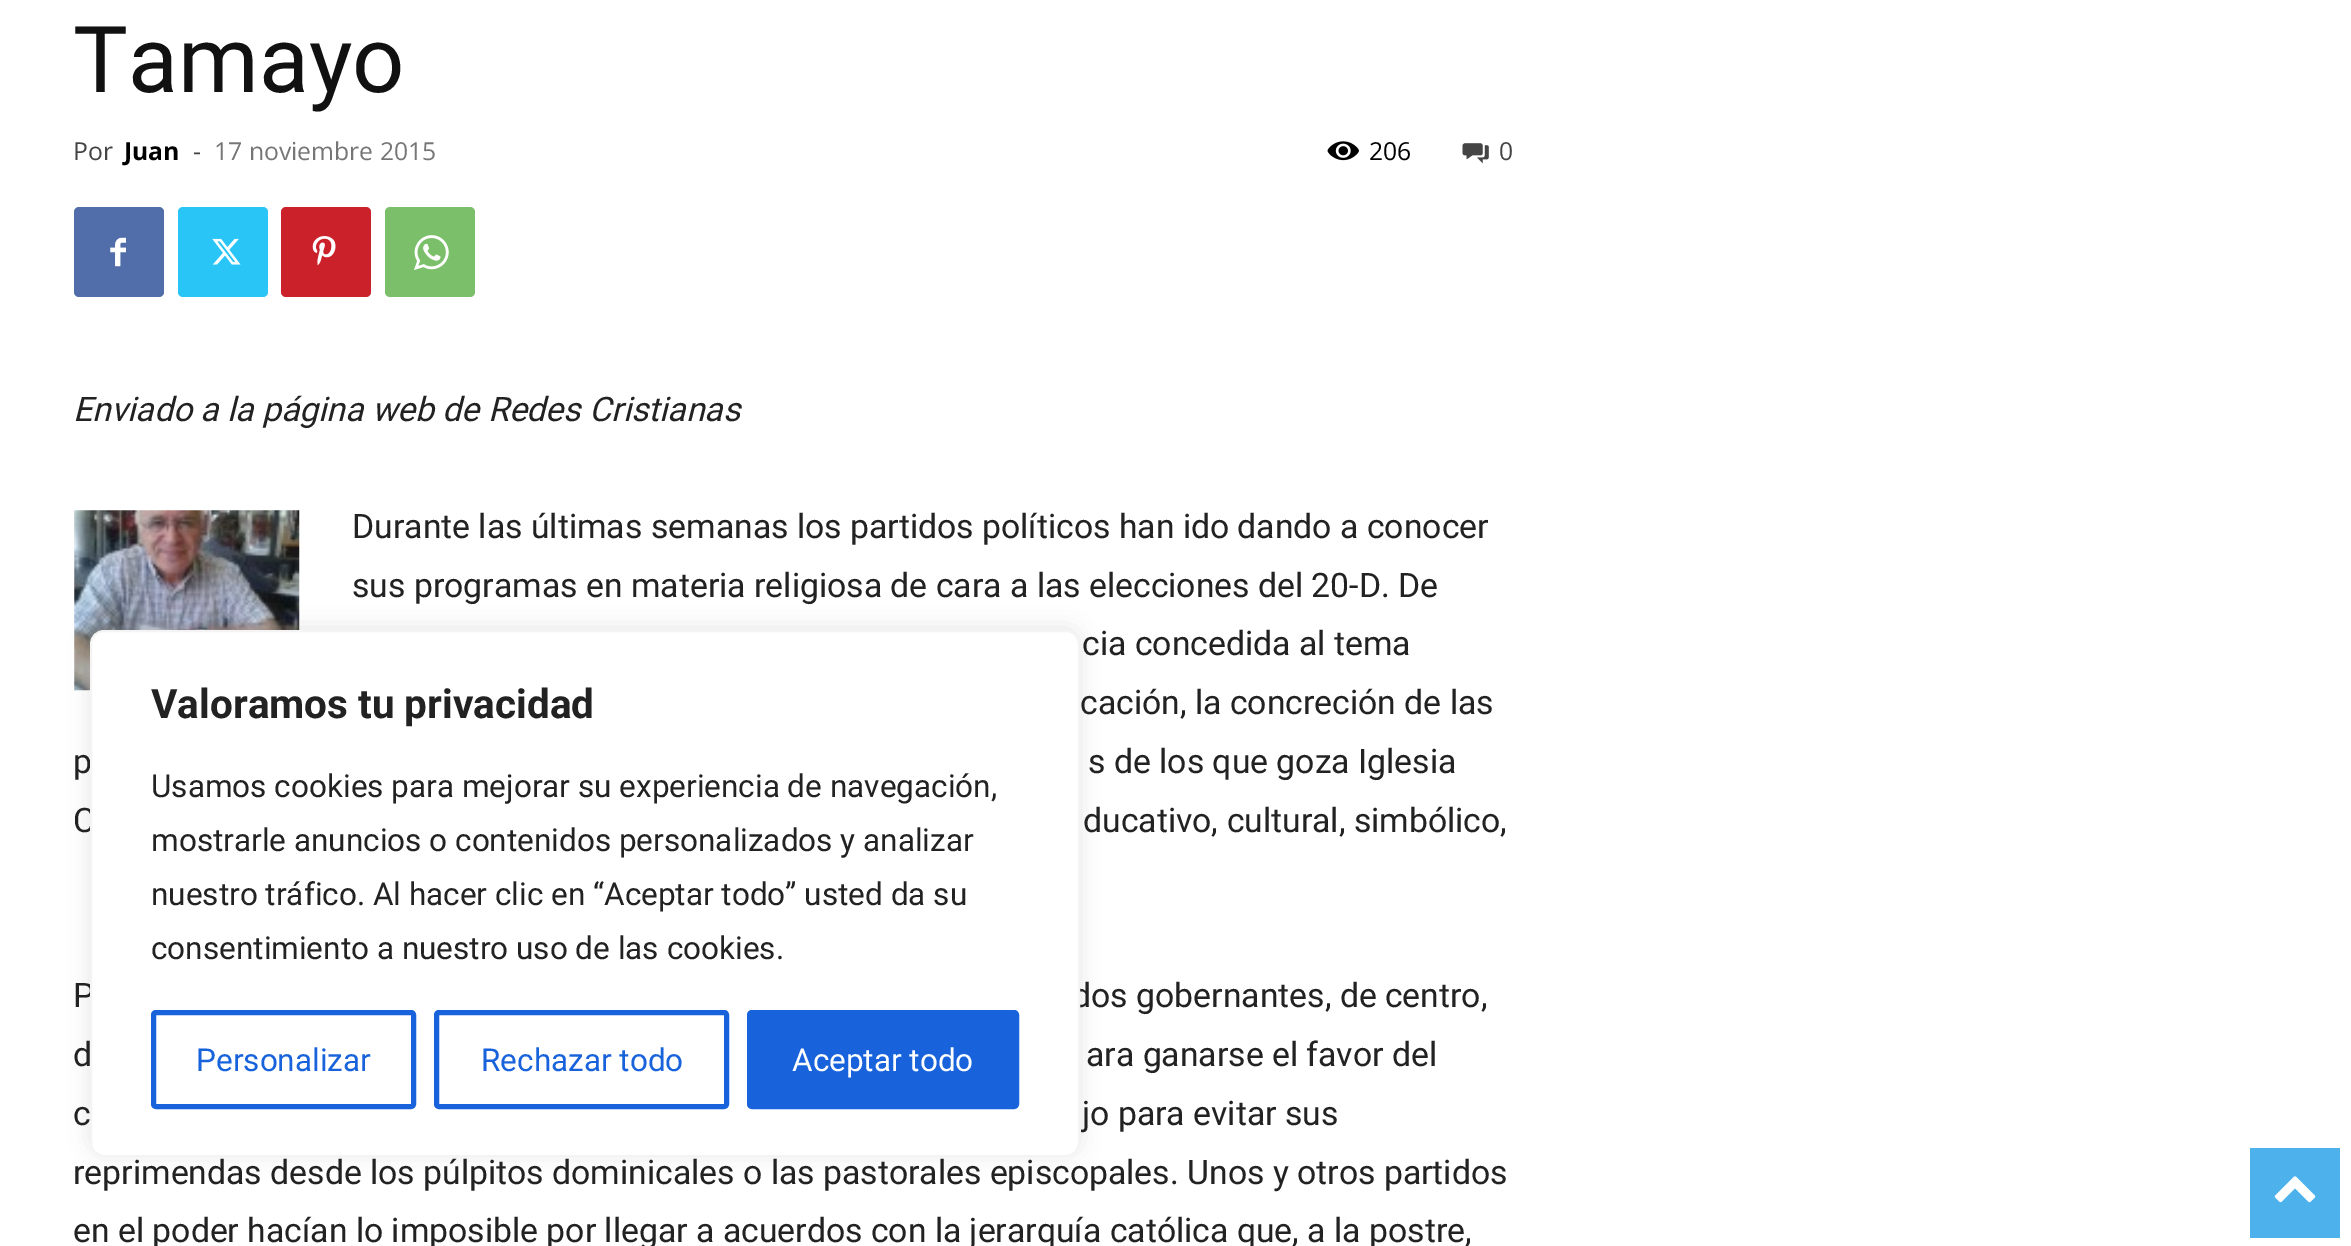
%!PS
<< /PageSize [2351 1246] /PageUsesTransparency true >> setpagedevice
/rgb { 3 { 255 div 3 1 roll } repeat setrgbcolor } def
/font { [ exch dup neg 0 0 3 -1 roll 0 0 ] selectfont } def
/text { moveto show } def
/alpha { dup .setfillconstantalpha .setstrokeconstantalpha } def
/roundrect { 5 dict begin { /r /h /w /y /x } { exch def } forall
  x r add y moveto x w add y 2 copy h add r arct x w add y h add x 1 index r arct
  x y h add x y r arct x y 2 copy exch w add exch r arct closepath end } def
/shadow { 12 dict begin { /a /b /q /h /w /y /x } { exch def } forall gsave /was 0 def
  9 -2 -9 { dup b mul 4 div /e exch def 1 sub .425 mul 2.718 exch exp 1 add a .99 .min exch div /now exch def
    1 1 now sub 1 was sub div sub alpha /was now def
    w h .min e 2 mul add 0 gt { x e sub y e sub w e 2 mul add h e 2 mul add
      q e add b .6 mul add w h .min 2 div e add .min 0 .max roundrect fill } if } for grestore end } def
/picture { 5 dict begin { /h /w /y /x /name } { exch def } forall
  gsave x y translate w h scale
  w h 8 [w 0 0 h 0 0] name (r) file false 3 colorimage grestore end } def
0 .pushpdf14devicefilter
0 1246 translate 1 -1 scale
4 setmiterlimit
255 255 255 rgb
0 0 2351 1246 rectfill
(img_01.rgb) 1327 141 32 20 picture
(img_02.rgb) 1462 143 27 21 picture
81 110 171 rgb
74 207 90 90 5 roundrect fill
(img_03.rgb) 110 237 16 30 picture
41 197 246 rgb
178 207 90 90 5 roundrect fill
(img_04.rgb) 212 238 29 27 picture
202 33 42 rgb
281 207 90 90 5 roundrect fill
(img_05.rgb) 312 236 24 30 picture
123 191 106 rgb
385 207 90 90 5 roundrect fill
(img_06.rgb) 414 235 35 35 picture
(img_07.rgb) 74 510 226 181 picture
172 171 171 rgb
90 628 990 526 14 11 0.3 shadow
77 178 236 rgb
2250 1148 90 90 rectfill
(img_08.rgb) 2274 1176 42 27 picture
/Roboto-Regular 92 font
17 17 17 rgb
(Tamayo) 73 92 text
/OpenSans-Regular 24.75 font
68 68 68 rgb
(Por) 73 160 text
/OpenSans-Bold 24.75 font
0 0 0 rgb
(Juan) 124 160 text
/OpenSans-Regular 24.75 font
68 68 68 rgb
(-) 193 160 text
118 118 118 rgb
(17 noviembre 2015) 214 160 text
0 0 0 rgb
(206) 1369 160 text
68 68 68 rgb
(0) 1499 160 text
/Roboto-Italic 33.75 font
34 34 34 rgb
(Enviado a la página web de Redes Cristianas) 73 421 text
/Roboto-Regular 33.75 font
(Durante las últimas semanas los partidos políticos han ido dando a conocer) 352 538 text
(sus programas en materia religiosa de cara a las elecciones del 20-D. De) 352 597 text
(cia concedida al tema) 1082 655 text
(cación, la concreción de las) 1080 714 text
(p) 73 773 text
(s de los que goza Iglesia) 1088 773 text
(C) 73 832 text
(ducativo, cultural, simbólico,) 1083 832 text
(P) 73 1007 text
(dos gobernantes, de centro,) 1072 1007 text
(d) 73 1066 text
(ara ganarse el favor del) 1086 1066 text
(c) 73 1125 text
(jo para evitar sus) 1082 1125 text
(reprimendas desde los púlpitos dominicales o las pastorales episcopales. Unos y otros partidos) 73 1184 text
(en el poder hacían lo imposible por llegar a acuerdos con la jerarquía católica que, a la postre,) 73 1242 text
255 255 255 rgb
91 631 988 525 13 roundrect gsave fill grestore
244 244 244 rgb
2 setlinewidth
stroke
/Roboto-Bold 40.5 font
34 34 34 rgb
(Valoramos tu privacidad) 151 718 text
/Roboto-Regular 31.5 font
(Usamos cookies para mejorar su experiencia de navegación,) 151 797 text
(mostrarle anuncios o contenidos personalizados y analizar) 151 851 text
(nuestro tráfico. Al hacer clic en “Aceptar todo” usted da su) 151 905 text
(consentimiento a nuestro uso de las cookies.) 151 959 text
24 99 220 rgb
5 setlinewidth
153.5 1012.5 260 94 2.5 roundrect stroke
(Personalizar) 196 1071 text
436.5 1012.5 290 94 2.5 roundrect stroke
(Rechazar todo) 481 1071 text
749.5 1012.5 267 94 2.5 roundrect gsave fill grestore
stroke
255 255 255 rgb
(Aceptar todo) 792 1071 text
.poppdf14devicefilter showpage
